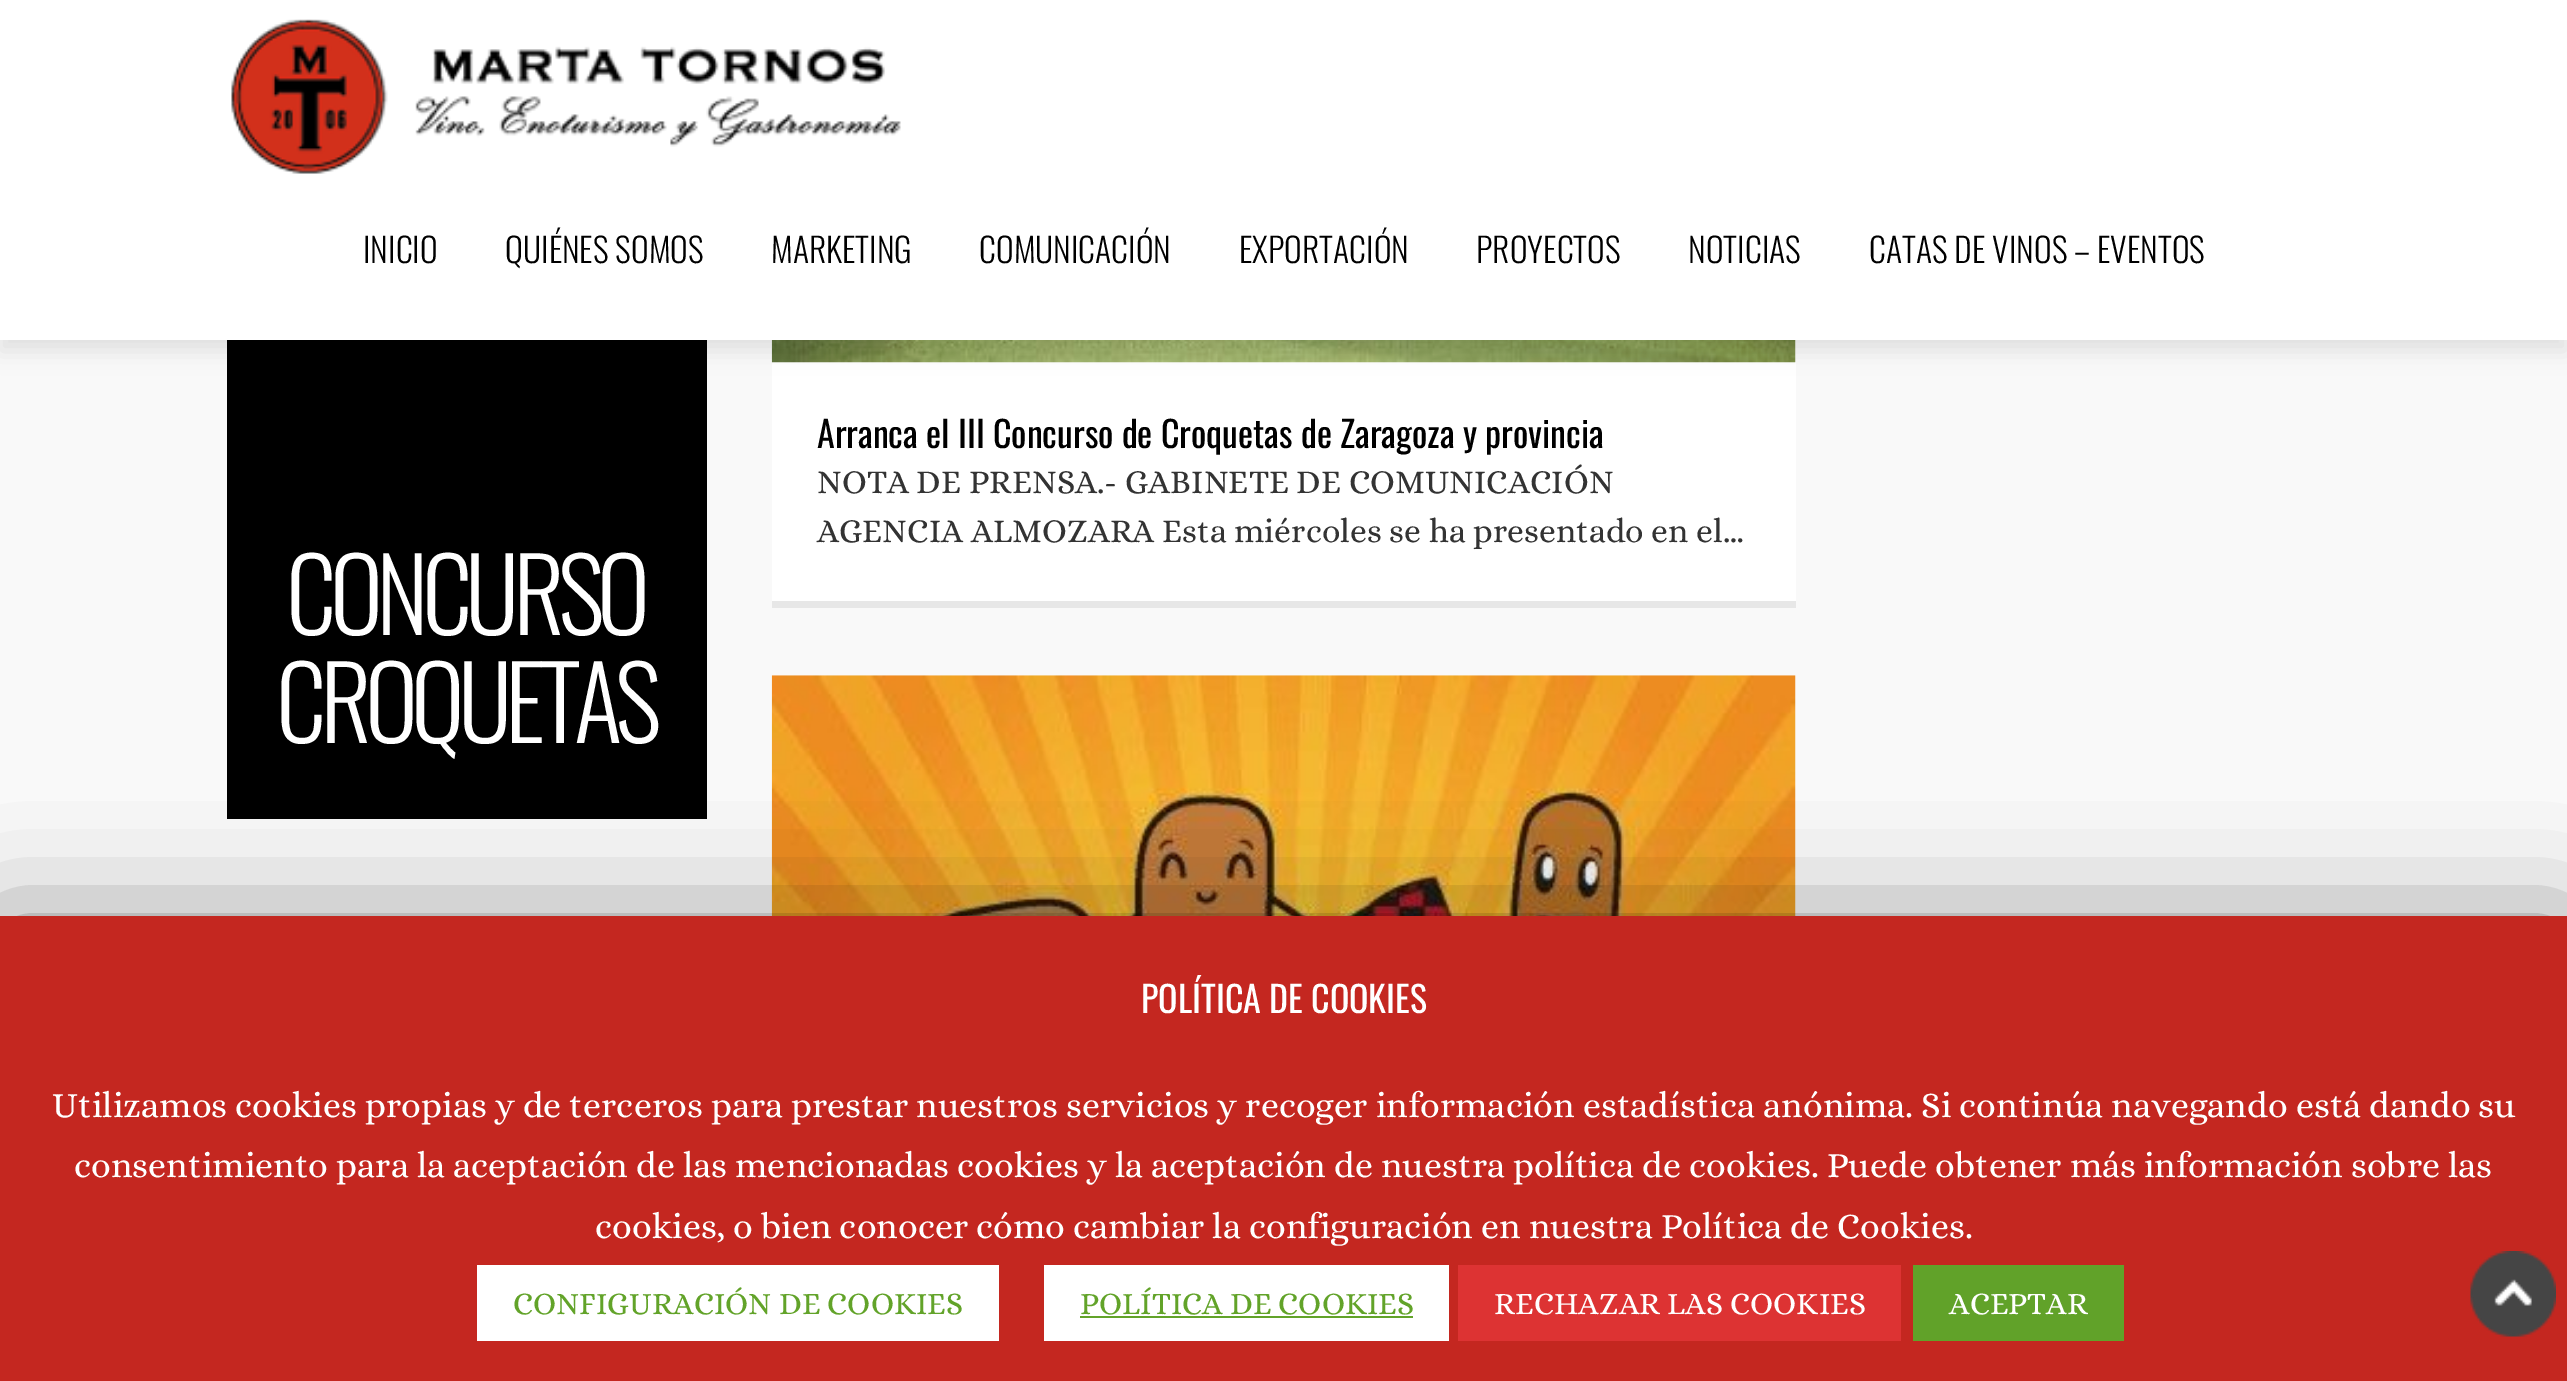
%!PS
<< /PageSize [2567 1381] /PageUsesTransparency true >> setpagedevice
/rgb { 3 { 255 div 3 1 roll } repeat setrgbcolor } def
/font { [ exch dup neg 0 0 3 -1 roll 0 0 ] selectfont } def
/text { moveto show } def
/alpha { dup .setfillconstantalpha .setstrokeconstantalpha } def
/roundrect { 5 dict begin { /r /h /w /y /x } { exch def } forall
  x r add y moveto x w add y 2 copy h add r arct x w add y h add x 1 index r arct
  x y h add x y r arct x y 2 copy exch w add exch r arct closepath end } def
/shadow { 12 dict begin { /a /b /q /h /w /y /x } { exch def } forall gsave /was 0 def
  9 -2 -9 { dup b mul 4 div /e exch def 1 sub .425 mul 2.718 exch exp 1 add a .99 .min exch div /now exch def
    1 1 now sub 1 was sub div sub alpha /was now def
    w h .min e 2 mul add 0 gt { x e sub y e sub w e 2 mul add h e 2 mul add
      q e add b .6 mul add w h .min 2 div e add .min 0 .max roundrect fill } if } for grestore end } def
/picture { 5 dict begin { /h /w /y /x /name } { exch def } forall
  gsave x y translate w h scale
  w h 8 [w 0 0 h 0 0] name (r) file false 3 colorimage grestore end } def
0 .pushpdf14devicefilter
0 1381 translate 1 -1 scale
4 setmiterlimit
249 249 249 rgb
0 0 2567 1381 rectfill
255 255 255 rgb
772 362 1024 239 rectfill
(img_02.rgb) 771 340 1025 23 picture
0 0 0 rgb
227 340 480 479 rectfill
0 11 2567 340 0 11 0.1 shadow
255 255 255 rgb
0 0 2567 340 rectfill
(img_01.rgb) 231 19 670 155 picture
231 231 231 rgb
772 601 1024 7 rectfill
(img_03.rgb) 771 675 1025 241 picture
0 0 0 rgb
0 927 2567 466 0 56 0.5 shadow
196 39 32 rgb
0 916 2567 465 rectfill
255 255 255 rgb
477 1265 522 76 rectfill
1044 1265 405 76 rectfill
98 163 41 rgb
1080 1316 333 2 rectfill
221 51 51 rgb
1458 1265 443 76 rectfill
97 162 41 rgb
1913 1265 211 76 rectfill
(img_04.rgb) 2470 1251 86 86 picture
/Oswald-Light 33.75 font
0 0 0 rgb
(INICIO) 363 263 text
(QUIÉNES SOMOS) 505 263 text
(MARKETING) 771 263 text
(COMUNICACIÓN) 979 263 text
(EXPORTACIÓN) 1239 263 text
(PROYECTOS) 1476 263 text
(NOTICIAS) 1688 263 text
(CATAS DE VINOS – EVENTOS) 1869 263 text
/Oswald-Regular 36 font
(Arranca el III Concurso de Croquetas de Zaragoza y provincia) 817 448 text
/Alice-Regular 33.75 font
51 51 51 rgb
(NOTA DE PRENSA.- GABINETE DE COMUNICACIÓN) 817 493 text
(AGENCIA ALMOZARA Esta miércoles se ha presentado en el…) 817 542 text
/Oswald-Light 101 font
255 255 255 rgb
286 635 moveto -6.75 0 (CONCURSO) ashow
276 743 moveto -6.75 0 (CROQUETAS) ashow
/Oswald-Regular 36 font
(POLÍTICA DE COOKIES) 1141 1013 text
/Alice-Regular 36 font
(Utilizamos cookies propias y de terceros para prestar nuestros servicios y recoger información estadística anónima. Si continúa navegando está dando su) 52 1117 text
(consentimiento para la aceptación de las mencionadas cookies y la aceptación de nuestra política de cookies. Puede obtener más información sobre las) 74 1177 text
(cookies, o bien conocer cómo cambiar la configuración en nuestra Política de Cookies.) 595 1238 text
/Alice-Regular 31.5 font
98 163 41 rgb
(CONFIGURACIÓN DE COOKIES) 513 1314 text
(POLÍTICA DE COOKIES) 1080 1314 text
255 255 255 rgb
(RECHAZAR LAS COOKIES) 1494 1314 text
(ACEPTAR) 1949 1314 text
.poppdf14devicefilter showpage
